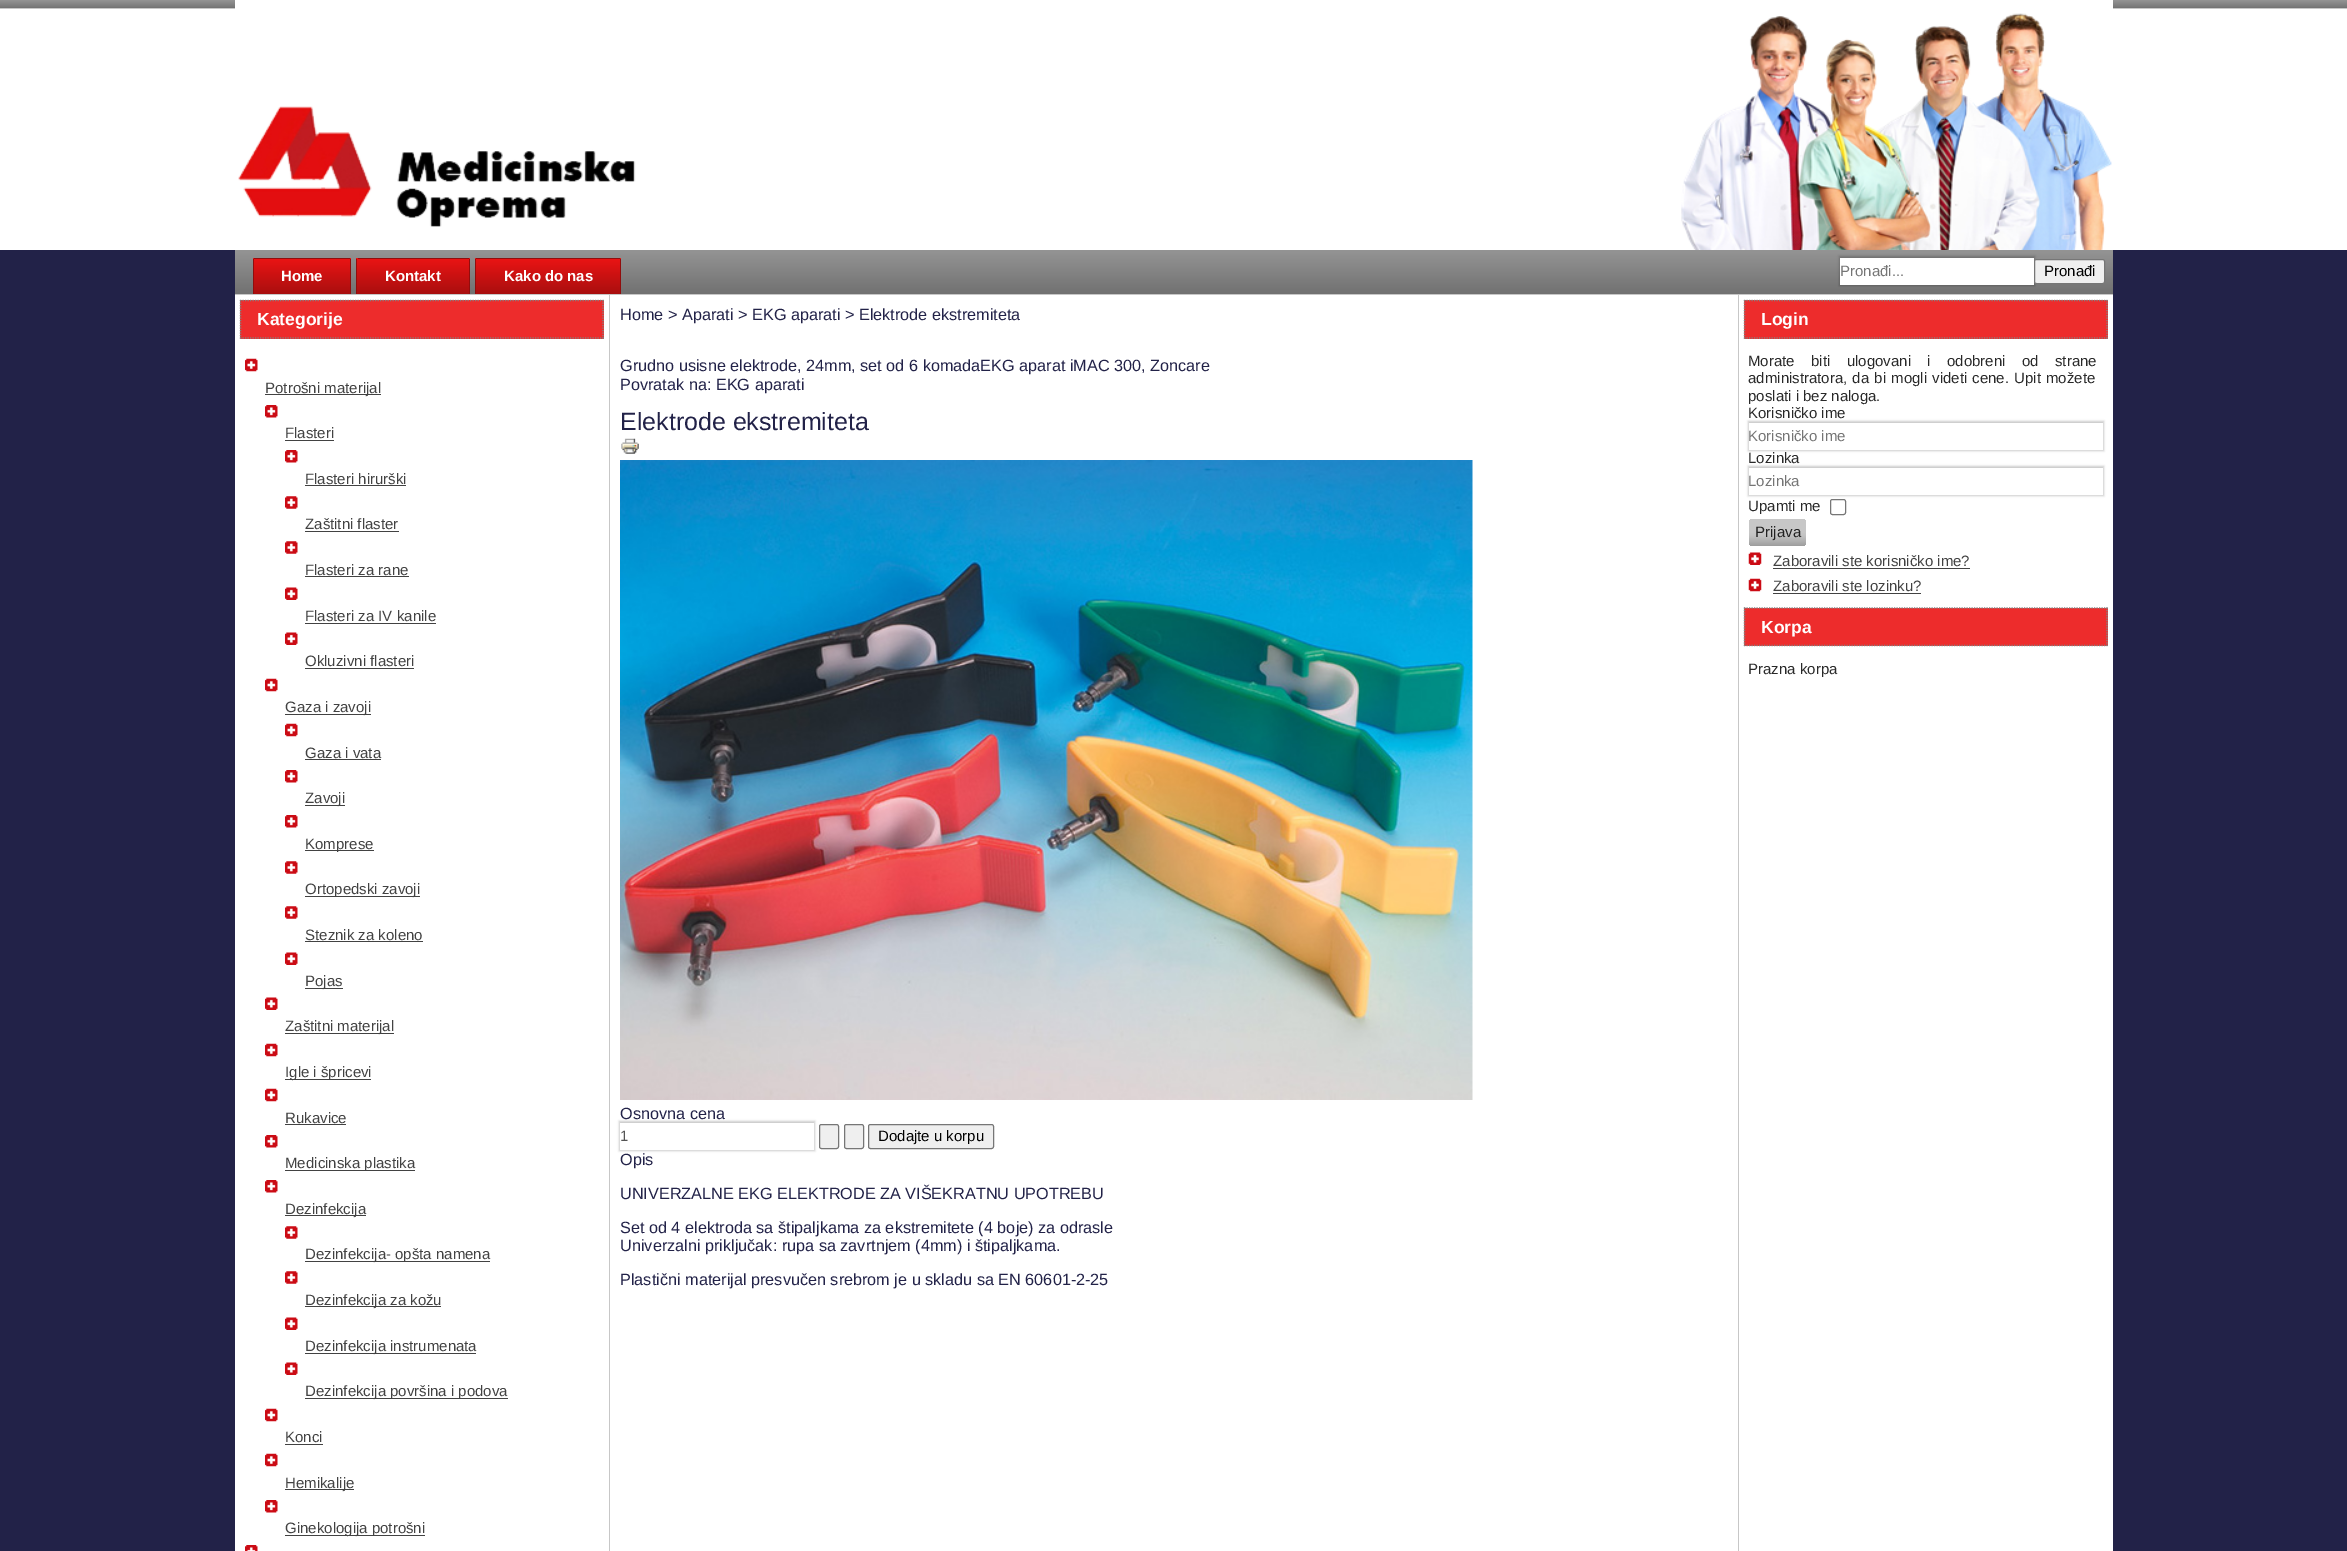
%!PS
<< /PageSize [2347 1551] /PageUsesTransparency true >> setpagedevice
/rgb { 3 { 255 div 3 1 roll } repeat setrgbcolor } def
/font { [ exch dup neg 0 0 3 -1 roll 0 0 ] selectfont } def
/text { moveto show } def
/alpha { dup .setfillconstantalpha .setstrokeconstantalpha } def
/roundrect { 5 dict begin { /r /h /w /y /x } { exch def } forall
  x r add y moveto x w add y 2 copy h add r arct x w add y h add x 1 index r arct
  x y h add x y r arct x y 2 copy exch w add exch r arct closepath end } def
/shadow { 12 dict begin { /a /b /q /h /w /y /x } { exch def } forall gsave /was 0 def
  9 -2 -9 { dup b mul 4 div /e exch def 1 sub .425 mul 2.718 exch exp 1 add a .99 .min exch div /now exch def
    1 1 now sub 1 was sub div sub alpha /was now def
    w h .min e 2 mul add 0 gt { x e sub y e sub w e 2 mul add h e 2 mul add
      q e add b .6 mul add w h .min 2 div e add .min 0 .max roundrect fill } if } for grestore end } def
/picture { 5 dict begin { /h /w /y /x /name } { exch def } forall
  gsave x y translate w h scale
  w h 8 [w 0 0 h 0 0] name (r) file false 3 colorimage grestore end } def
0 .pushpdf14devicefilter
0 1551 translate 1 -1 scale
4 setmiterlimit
34 34 72 rgb
0 0 2347 1551 rectfill
gsave 0 0 moveto 2347 0 rlineto 0 8 rlineto -2347 0 rlineto closepath clip newpath
<< /ShadingType 2 /ColorSpace /DeviceRGB /Coords [1174 0 1174 9] /Extend [true true] /Function << /FunctionType 3 /Domain [0 1] /Functions [<< /FunctionType 2 /Domain [0 1] /C0 [0.58 0.58 0.58] /C1 [0.502 0.502 0.502] /N 1 >> << /FunctionType 2 /Domain [0 1] /C0 [0.502 0.502 0.502] /C1 [0.439 0.439 0.439] /N 1 >>] /Bounds [0.57] /Encode [0 1 0 1] >> >> shfill grestore
199 199 199 rgb
0 8 2347 1 rectfill
255 255 255 rgb
0 9 2347 241 rectfill
235 0 1878 1551 rectfill
(img_01.rgb) 238 106 398 121 picture
(img_02.rgb) 1681 13 431 237 picture
gsave 235 250 moveto 1878 0 rlineto 0 44 rlineto -1878 0 rlineto closepath clip newpath
<< /ShadingType 2 /ColorSpace /DeviceRGB /Coords [1174 250 1174 295] /Extend [true true] /Function << /FunctionType 3 /Domain [0 1] /Functions [<< /FunctionType 2 /Domain [0 1] /C0 [0.58 0.58 0.58] /C1 [0.502 0.502 0.502] /N 1 >> << /FunctionType 2 /Domain [0 1] /C0 [0.502 0.502 0.502] /C1 [0.439 0.439 0.439] /N 1 >>] /Bounds [0.57] /Encode [0 1 0 1] >> >> shfill grestore
199 199 199 rgb
235 294 1878 1 rectfill
gsave 255.5 258 moveto 93 0 rlineto 1.5 0 2.5 1 2.5 2.5 rcurveto 0 33.5 rlineto -98 0 rlineto 0 -33.5 rlineto 0 -1.5 1 -2.5 2.5 -2.5 rcurveto closepath clip newpath
<< /ShadingType 2 /ColorSpace /DeviceRGB /Coords [302 258 302 294] /Extend [true true] /Function << /FunctionType 2 /Domain [0 1] /C0 [0.922 0.078 0.078] /C1 [0.663 0.059 0.059] /N 1 >> >> shfill grestore
145 13 13 rgb
254 258 96 1 rectfill
350 259 1 35 rectfill
253 259 1 35 rectfill
gsave 358.5 258 moveto 109 0 rlineto 1.5 0 2.5 1 2.5 2.5 rcurveto 0 33.5 rlineto -114 0 rlineto 0 -33.5 rlineto 0 -1.5 1 -2.5 2.5 -2.5 rcurveto closepath clip newpath
<< /ShadingType 2 /ColorSpace /DeviceRGB /Coords [413 258 413 294] /Extend [true true] /Function << /FunctionType 2 /Domain [0 1] /C0 [0.922 0.078 0.078] /C1 [0.663 0.059 0.059] /N 1 >> >> shfill grestore
358 258 111 1 rectfill
469 259 1 35 rectfill
356 259 1 35 rectfill
gsave 477.5 258 moveto 141 0 rlineto 1.5 0 2.5 1 2.5 2.5 rcurveto 0 33.5 rlineto -146 0 rlineto 0 -33.5 rlineto 0 -1.5 1 -2.5 2.5 -2.5 rcurveto closepath clip newpath
<< /ShadingType 2 /ColorSpace /DeviceRGB /Coords [548 258 548 294] /Extend [true true] /Function << /FunctionType 2 /Domain [0 1] /C0 [0.922 0.078 0.078] /C1 [0.663 0.059 0.059] /N 1 >> >> shfill grestore
476 258 144 1 rectfill
620 259 1 35 rectfill
475 259 1 35 rectfill
0 0 0 rgb
1839 256 196 30 0 1 0.2 shadow
255 255 255 rgb
1840 258 194 27 rectfill
239 239 239 rgb
2034.5 259.5 70 24 2 roundrect gsave fill grestore
118 118 118 rgb
stroke
199 199 199 rgb
609 295 1 1256 rectfill
237 44 44 rgb
240 300 364 39 rectfill
130 130 130 rgb
1.2 setlinewidth
[1.25 1.25] 0 setdash
240 300.5 moveto 364 0 rlineto stroke
603 300 moveto 0 39 rlineto stroke
240 338 moveto 364 0 rlineto stroke
240.5 300 moveto 0 39 rlineto stroke
(img_03.rgb) 245 358 13 14 picture
66 66 66 rgb
265 394 116 1 rectfill
(img_04.rgb) 265 405 13 13 picture
285 440 49 1 rectfill
(img_04.rgb) 285 450 13 13 picture
305 485 101 1 rectfill
(img_05.rgb) 285 496 13 13 picture
305 531 94 1 rectfill
(img_05.rgb) 285 541 13 13 picture
305 576 104 1 rectfill
(img_06.rgb) 285 587 13 13 picture
305 623 131 1 rectfill
(img_07.rgb) 285 632 13 13 picture
305 668 109 1 rectfill
(img_08.rgb) 265 678 13 14 picture
285 714 86 1 rectfill
(img_08.rgb) 285 723 13 14 picture
305 759 76 1 rectfill
(img_04.rgb) 285 770 13 13 picture
305 805 40 1 rectfill
(img_04.rgb) 285 815 13 13 picture
305 850 69 1 rectfill
(img_05.rgb) 285 861 13 13 picture
305 896 115 1 rectfill
(img_05.rgb) 285 906 13 13 picture
305 941 118 1 rectfill
(img_07.rgb) 285 952 13 13 picture
305 988 38 1 rectfill
(img_07.rgb) 265 997 13 13 picture
285 1033 109 1 rectfill
(img_08.rgb) 265 1043 13 14 picture
285 1079 86 1 rectfill
(img_08.rgb) 265 1088 13 14 picture
285 1124 61 1 rectfill
(img_04.rgb) 265 1135 13 13 picture
285 1170 130 1 rectfill
(img_04.rgb) 265 1180 13 13 picture
285 1215 81 1 rectfill
(img_05.rgb) 285 1226 13 13 picture
305 1261 185 1 rectfill
(img_05.rgb) 285 1271 13 13 picture
305 1306 136 1 rectfill
(img_07.rgb) 285 1317 13 13 picture
305 1353 171 1 rectfill
(img_07.rgb) 285 1362 13 13 picture
305 1398 203 1 rectfill
(img_08.rgb) 265 1408 13 14 picture
285 1444 38 1 rectfill
(img_08.rgb) 265 1453 13 14 picture
285 1489 69 1 rectfill
(img_04.rgb) 265 1500 13 13 picture
285 1535 140 1 rectfill
(img_09.rgb) 245 1545 13 6 picture
(img_10.rgb) 621 438 18 16 picture
(img_11.rgb) 620 460 853 640 picture
0 0 0 rgb
619 1121 196 30 0 1 0.2 shadow
255 255 255 rgb
620 1123 194 27 rectfill
239 239 239 rgb
819.5 1124.5 19 24 2 roundrect gsave fill grestore
118 118 118 rgb
1 setlinewidth
[] 0 setdash
stroke
239 239 239 rgb
844.5 1124.5 19 24 2 roundrect gsave fill grestore
118 118 118 rgb
stroke
239 239 239 rgb
868.5 1124.5 125 24 2 roundrect gsave fill grestore
118 118 118 rgb
stroke
199 199 199 rgb
1738 295 1 1256 rectfill
237 44 44 rgb
1744 300 364 39 rectfill
130 130 130 rgb
1.2 setlinewidth
[1.25 1.25] 0 setdash
1744 300.5 moveto 363.5 0 rlineto stroke
2107 300 moveto 0 39 rlineto stroke
1744 338 moveto 363.5 0 rlineto stroke
1744.5 300 moveto 0 39 rlineto stroke
0 0 0 rgb
1748 421 356 30 0 1 0.2 shadow
255 255 255 rgb
1749 423 354 27 rectfill
0 0 0 rgb
1748 466 356 30 0 1 0.2 shadow
255 255 255 rgb
1749 468 354 27 rectfill
118 118 118 rgb
1 setlinewidth
[] 0 setdash
1830.5 499.5 15 15 2 roundrect stroke
gsave 1749 519 57 27 4 roundrect clip newpath
<< /ShadingType 2 /ColorSpace /DeviceRGB /Coords [1778 519 1778 546] /Extend [true true] /Function << /FunctionType 3 /Domain [0 1] /Functions [<< /FunctionType 2 /Domain [0 1] /C0 [0.78 0.78 0.78] /C1 [0.78 0.78 0.78] /N 1 >> << /FunctionType 2 /Domain [0 1] /C0 [0.78 0.78 0.78] /C1 [0.769 0.769 0.769] /N 1 >> << /FunctionType 2 /Domain [0 1] /C0 [0.769 0.769 0.769] /C1 [0.62 0.62 0.62] /N 1 >>] /Bounds [0.5 0.6] /Encode [0 1 0 1 0 1] >> >> shfill grestore
(img_12.rgb) 1748 552 14 13 picture
66 66 66 rgb
1773 568 197 1 rectfill
(img_13.rgb) 1748 578 14 14 picture
1773 593 148 1 rectfill
237 44 44 rgb
1744 608 364 38 rectfill
130 130 130 rgb
1.2 setlinewidth
[1.25 1.25] 0 setdash
1744 608 moveto 363.5 0 rlineto stroke
2107 607.5 moveto 0 38.5 rlineto stroke
1744 645.5 moveto 363.5 0 rlineto stroke
1744.5 607.5 moveto 0 38.5 rlineto stroke
/LiberationSans-Bold 15 font
255 255 255 rgb
(Home) 281 281 text
(Kontakt) 385 281 text
(Kako do nas) 504 281 text
/LiberationSans-Regular 15 font
117 117 117 rgb
(Pronađi...) 1840 276 text
0 0 0 rgb
(Pronađi) 2044 276 text
/LiberationSans-Bold 17.5 font
255 255 255 rgb
(Kategorije) 257 325 text
/LiberationSans-Regular 15 font
66 66 66 rgb
(Potrošni materijal) 265 393 text
(Flasteri) 285 438 text
(Flasteri hirurški) 305 484 text
(Zaštitni flaster) 305 529 text
(Flasteri za rane) 305 575 text
(Flasteri za IV kanile) 305 621 text
(Okluzivni flasteri) 305 666 text
(Gaza i zavoji) 285 712 text
(Gaza i vata) 305 758 text
(Zavoji) 305 803 text
(Komprese) 305 849 text
(Ortopedski zavoji) 305 894 text
(Steznik za koleno) 305 940 text
(Pojas) 305 986 text
(Zaštitni materijal) 285 1031 text
(Igle i špricevi) 285 1077 text
(Rukavice) 285 1123 text
(Medicinska plastika) 285 1168 text
(Dezinfekcija) 285 1214 text
(Dezinfekcija- opšta namena) 305 1259 text
(Dezinfekcija za kožu) 305 1305 text
(Dezinfekcija instrumenata) 305 1351 text
(Dezinfekcija površina i podova) 305 1396 text
(Konci) 285 1442 text
(Hemikalije) 285 1488 text
(Ginekologija potrošni) 285 1533 text
/LiberationSans-Regular 16.25 font
34 34 72 rgb
(Home > Aparati > EKG aparati > Elektrode ekstremiteta) 620 320 text
(Grudno usisne elektrode, 24mm, set od 6 komadaEKG aparat iMAC 300, Zoncare) 620 371 text
(Povratak na: EKG aparati) 620 390 text
/LiberationSans-Regular 25 font
(Elektrode ekstremiteta) 620 430 text
/LiberationSans-Regular 16.25 font
(Osnovna cena) 620 1119 text
/LiberationSans-Regular 15 font
84 84 84 rgb
(1) 620 1141 text
0 0 0 rgb
(Dodajte u korpu) 878 1141 text
/LiberationSans-Regular 16.25 font
34 34 72 rgb
(Opis) 620 1165 text
(UNIVERZALNE EKG ELEKTRODE ZA VIŠEKRATNU UPOTREBU) 620 1199 text
(Set od 4 elektroda sa štipaljkama za ekstremitete \(4 boje\) za odrasle) 620 1233 text
(Univerzalni priključak: rupa sa zavrtnjem \(4mm\) i štipaljkama.) 620 1251 text
(Plastični materijal presvučen srebrom je u skladu sa EN 60601-2-25) 620 1285 text
/LiberationSans-Bold 17.5 font
255 255 255 rgb
(Login) 1761 325 text
/LiberationSans-Regular 15 font
41 41 41 rgb
1748 366 moveto 12.25 0 32 (Morate biti ulogovani i odobreni od strane) widthshow
1748 383 moveto 1 0 32 (administratora, da bi mogli videti cene. Upit možete) widthshow
(poslati i bez naloga.) 1748 401 text
(Korisničko ime) 1748 418 text
117 117 117 rgb
(Korisničko ime) 1748 441 text
41 41 41 rgb
(Lozinka) 1748 463 text
117 117 117 rgb
(Lozinka) 1748 486 text
41 41 41 rgb
(Upamti me) 1748 511 text
33 33 33 rgb
(Prijava) 1755 537 text
66 66 66 rgb
(Zaboravili ste korisničko ime?) 1773 566 text
(Zaboravili ste lozinku?) 1773 591 text
/LiberationSans-Bold 17.5 font
255 255 255 rgb
(Korpa) 1761 633 text
/LiberationSans-Regular 15 font
41 41 41 rgb
(Prazna korpa) 1748 674 text
.poppdf14devicefilter showpage
